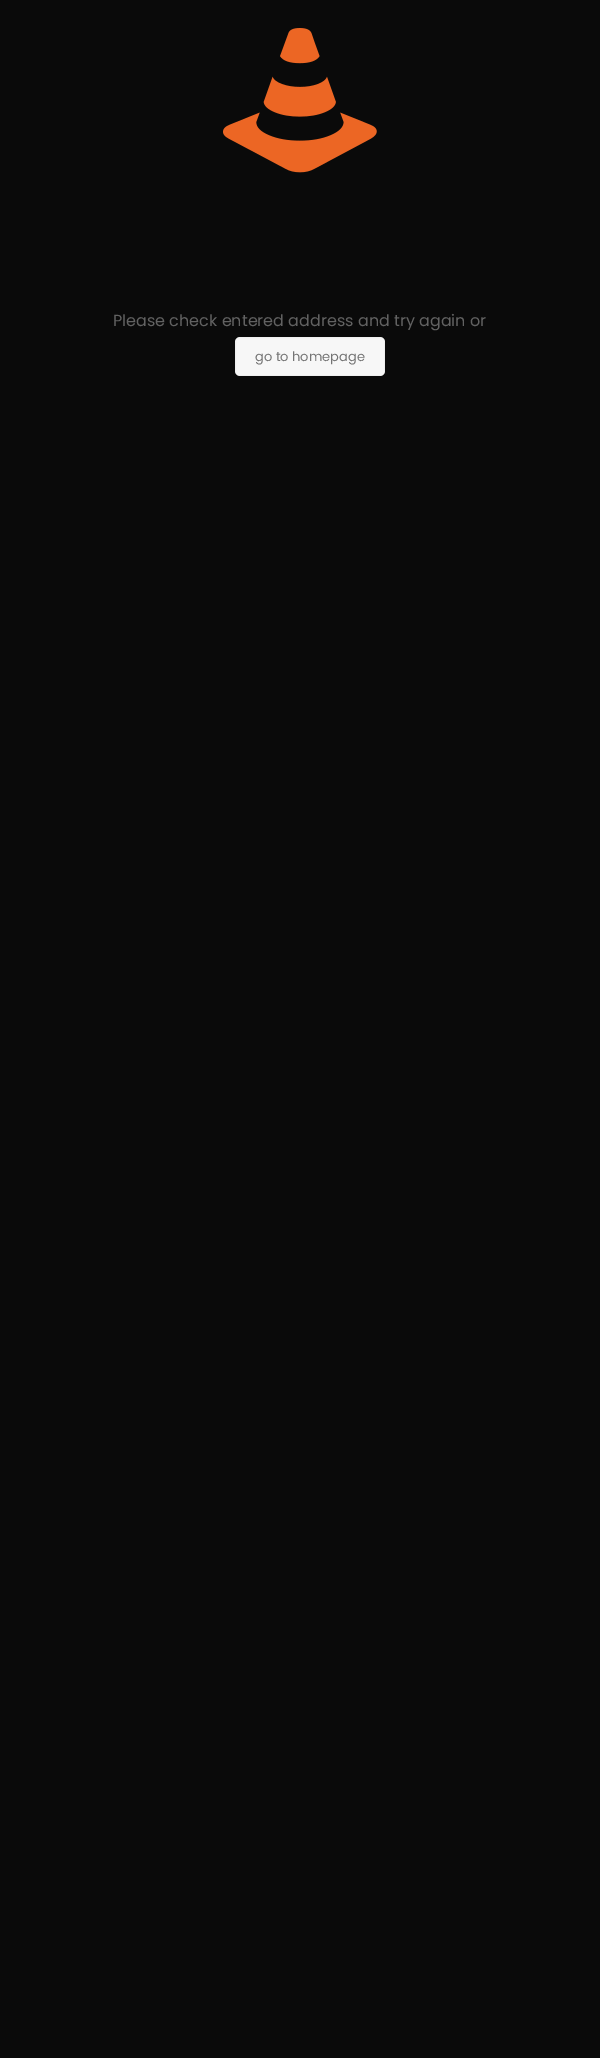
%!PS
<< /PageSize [600 2058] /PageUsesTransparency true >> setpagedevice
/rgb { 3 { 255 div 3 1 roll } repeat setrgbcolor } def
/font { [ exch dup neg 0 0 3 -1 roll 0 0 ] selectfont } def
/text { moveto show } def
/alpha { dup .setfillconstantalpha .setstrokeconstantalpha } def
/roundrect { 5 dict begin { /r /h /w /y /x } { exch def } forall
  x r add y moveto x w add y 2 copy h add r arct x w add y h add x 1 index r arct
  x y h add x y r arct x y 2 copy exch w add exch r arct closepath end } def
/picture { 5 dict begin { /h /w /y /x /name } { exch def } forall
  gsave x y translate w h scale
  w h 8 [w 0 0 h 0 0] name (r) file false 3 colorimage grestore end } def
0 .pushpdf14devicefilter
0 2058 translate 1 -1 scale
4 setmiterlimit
10 10 10 rgb
0 0 600 2058 rectfill
(img_01.rgb) 223 28 154 145 picture
247 247 247 rgb
235 337 150 39 5 roundrect fill
0.03 alpha
0 0 0 rgb
235.5 337.5 149 38 rectstroke
/Poppins-Regular 16 font
1 alpha
98 98 98 rgb
(Please check entered address and try again or) 113 326 text
/Poppins-Regular 13 font
116 116 116 rgb
(go to homepage) 255 361 text
.poppdf14devicefilter showpage
